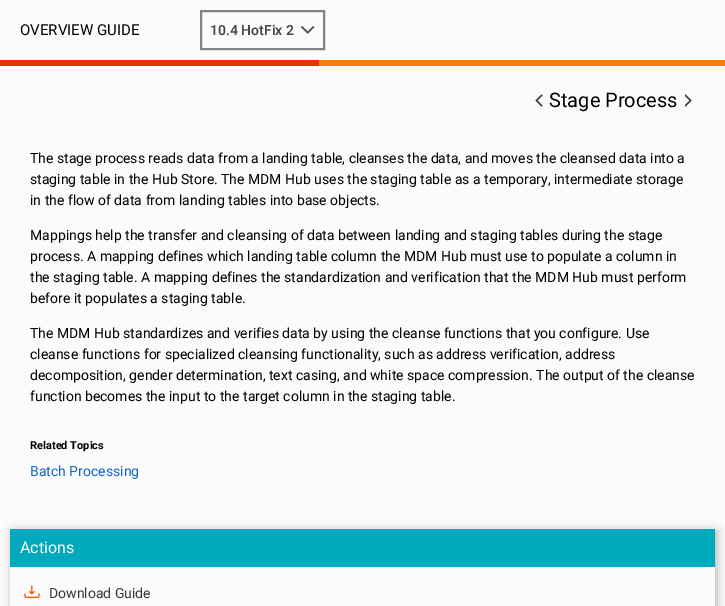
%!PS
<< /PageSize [725 606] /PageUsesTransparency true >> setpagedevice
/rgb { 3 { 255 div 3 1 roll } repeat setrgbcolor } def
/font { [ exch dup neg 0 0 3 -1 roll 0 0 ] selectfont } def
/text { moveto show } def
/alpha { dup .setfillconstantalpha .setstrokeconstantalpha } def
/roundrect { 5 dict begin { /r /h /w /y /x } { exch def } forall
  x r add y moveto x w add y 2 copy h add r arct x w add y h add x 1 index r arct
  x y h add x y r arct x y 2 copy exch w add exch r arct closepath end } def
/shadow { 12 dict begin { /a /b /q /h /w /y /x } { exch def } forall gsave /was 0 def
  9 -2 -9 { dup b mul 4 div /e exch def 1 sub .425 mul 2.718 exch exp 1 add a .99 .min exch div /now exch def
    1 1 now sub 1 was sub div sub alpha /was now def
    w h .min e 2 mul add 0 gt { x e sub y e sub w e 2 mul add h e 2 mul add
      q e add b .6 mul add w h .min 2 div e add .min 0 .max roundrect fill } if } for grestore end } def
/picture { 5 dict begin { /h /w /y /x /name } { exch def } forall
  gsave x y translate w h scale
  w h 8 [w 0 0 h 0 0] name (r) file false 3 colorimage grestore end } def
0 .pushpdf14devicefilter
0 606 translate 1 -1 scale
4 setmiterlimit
251 251 251 rgb
0 0 725 606 rectfill
130 130 130 rgb
2 setlinewidth
201 11 123 38 rectstroke
(img_01.rgb) 301 26 14 8 picture
255 125 0 rgb
319 60 406 6 rectfill
226 52 0 rgb
0 60 319 6 rectfill
(img_02.rgb) 535 94 8 13 picture
(img_03.rgb) 685 94 7 13 picture
gsave
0 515 moveto 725 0 rlineto 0 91 rlineto -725 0 rlineto closepath 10 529 moveto 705 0 rlineto 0 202 rlineto -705 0 rlineto closepath eoclip newpath
0 0 0 rgb
12 531 705 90 0 5 0.3 shadow
grestore
0 169 187 rgb
10 529 705 38 rectfill
(img_04.rgb) 24 585 16 13 picture
/Roboto-Regular 15 font
0 0 0 rgb
(OVERVIEW GUIDE) 20 35 text
/Roboto-SemiBold 14 font
72 72 72 rgb
(10.4 HotFix 2) 210 35 text
/Roboto-Regular 20 font
0 0 0 rgb
(Stage Process) 549 107 text
/Roboto-Regular 14 font
(The stage process reads data from a landing table, cleanses the data, and moves the cleansed data into a) 30 163 text
(staging table in the Hub Store. The MDM Hub uses the staging table as a temporary, intermediate storage) 30 184 text
(in the flow of data from landing tables into base objects.) 30 205 text
(Mappings help the transfer and cleansing of data between landing and staging tables during the stage) 30 240 text
(process. A mapping defines which landing table column the MDM Hub must use to populate a column in) 30 261 text
(the staging table. A mapping defines the standardization and verification that the MDM Hub must perform) 30 282 text
(before it populates a staging table.) 30 303 text
(The MDM Hub standardizes and verifies data by using the cleanse functions that you configure. Use) 30 338 text
(cleanse functions for specialized cleansing functionality, such as address verification, address) 30 359 text
(decomposition, gender determination, text casing, and white space compression. The output of the cleanse) 30 380 text
(function becomes the input to the target column in the staging table.) 30 401 text
/Roboto-Bold 11 font
(Related Topics) 30 449 text
/Roboto-Regular 14 font
15 100 205 rgb
(Batch Processing) 30 476 text
/Roboto-Regular 16 font
255 255 255 rgb
(Actions) 20 553 text
/Roboto-Regular 14 font
55 55 55 rgb
(Download Guide) 49 598 text
.poppdf14devicefilter showpage
